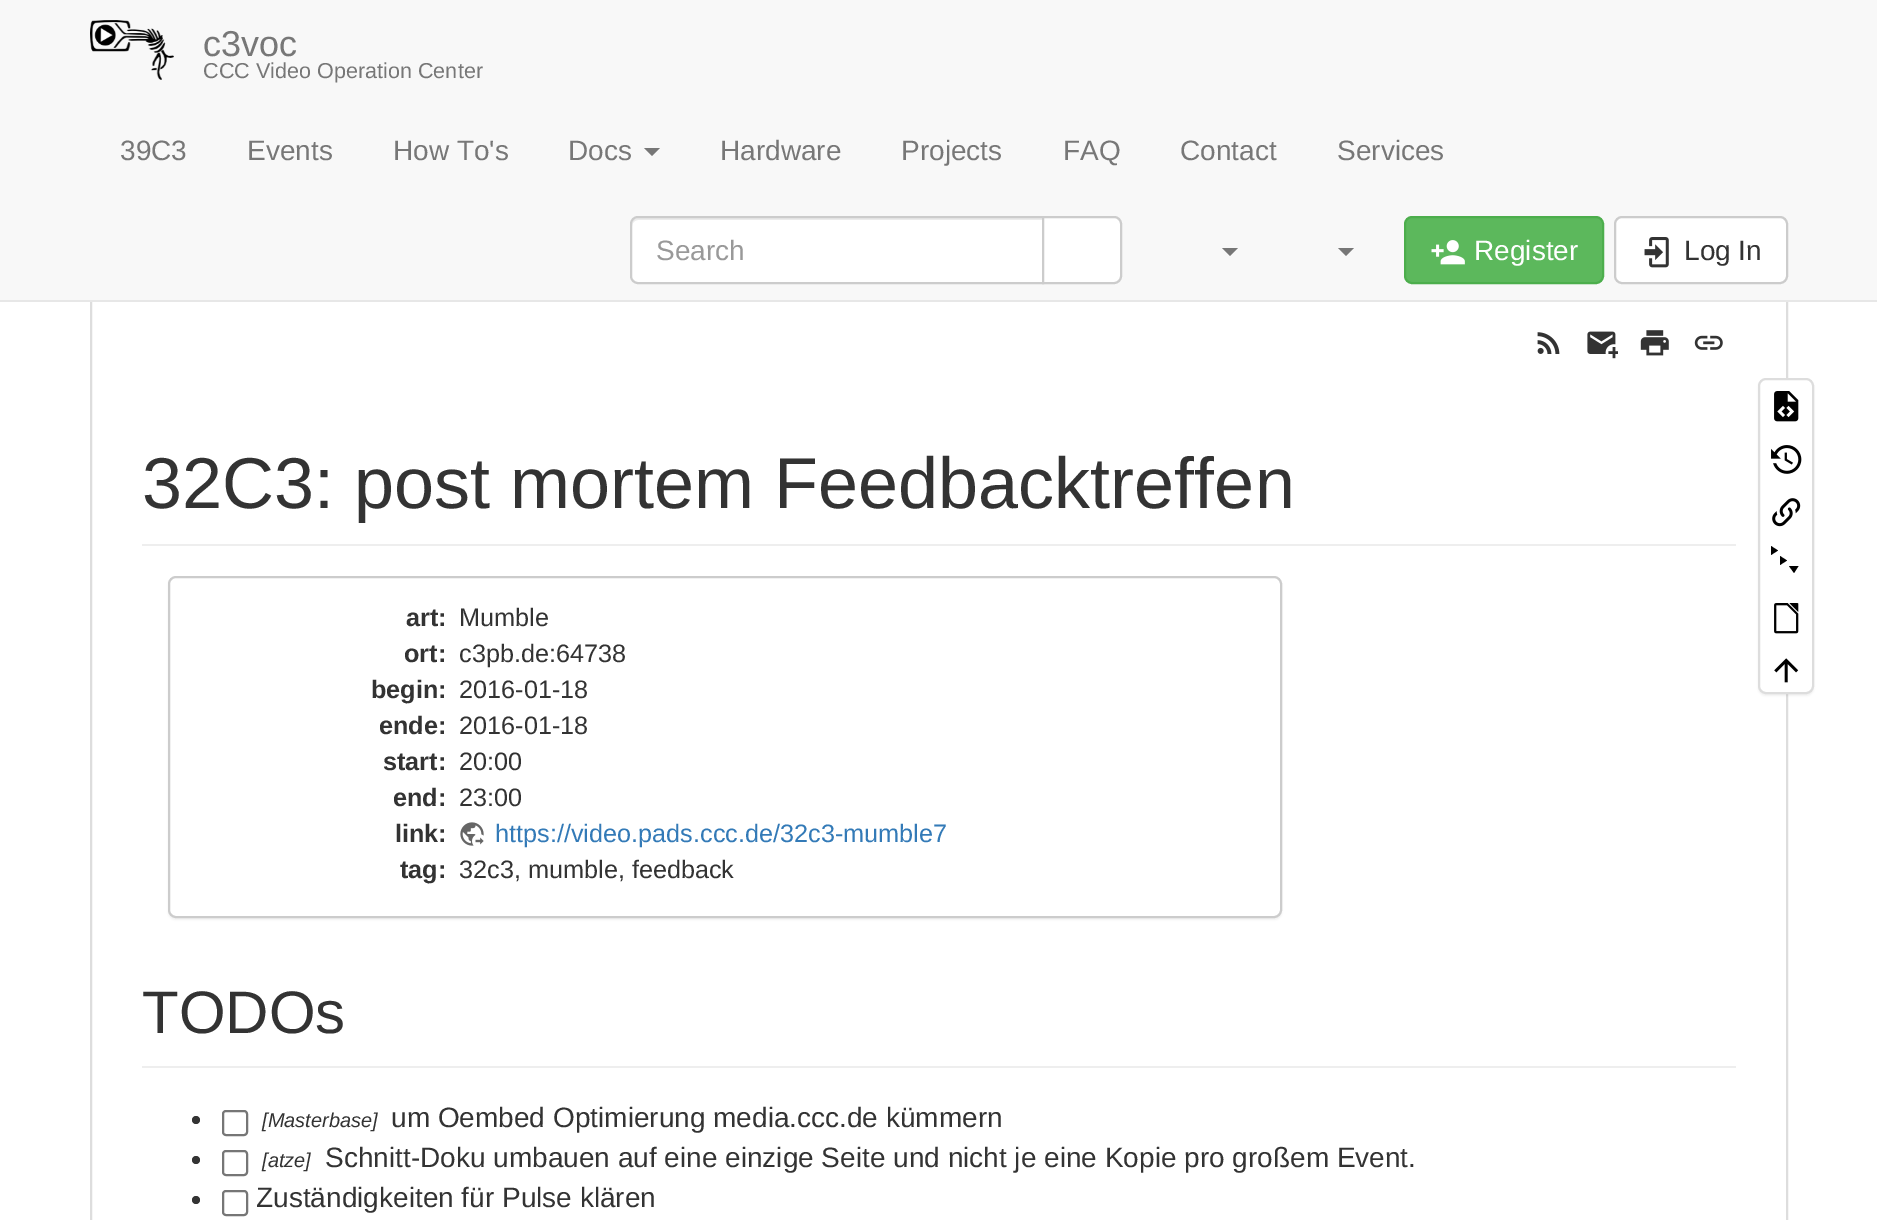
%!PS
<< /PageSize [1877 1220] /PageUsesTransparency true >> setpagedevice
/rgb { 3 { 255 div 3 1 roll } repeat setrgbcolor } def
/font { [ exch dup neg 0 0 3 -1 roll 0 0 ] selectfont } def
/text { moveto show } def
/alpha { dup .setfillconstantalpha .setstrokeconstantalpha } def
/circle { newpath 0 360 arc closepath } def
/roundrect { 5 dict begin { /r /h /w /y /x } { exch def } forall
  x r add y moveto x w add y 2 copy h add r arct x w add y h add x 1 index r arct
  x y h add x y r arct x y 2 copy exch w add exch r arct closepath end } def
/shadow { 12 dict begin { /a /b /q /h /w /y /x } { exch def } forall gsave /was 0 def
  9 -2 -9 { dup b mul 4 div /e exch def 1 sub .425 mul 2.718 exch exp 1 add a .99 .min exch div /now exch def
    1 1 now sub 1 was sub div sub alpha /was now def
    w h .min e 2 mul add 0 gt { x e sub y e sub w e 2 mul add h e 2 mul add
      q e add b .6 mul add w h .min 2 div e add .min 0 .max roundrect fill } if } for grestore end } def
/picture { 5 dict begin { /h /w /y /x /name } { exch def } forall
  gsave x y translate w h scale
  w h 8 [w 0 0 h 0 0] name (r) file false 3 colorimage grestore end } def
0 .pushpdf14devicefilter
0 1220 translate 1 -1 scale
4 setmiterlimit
255 255 255 rgb
0 0 1877 1220 rectfill
221 221 221 rgb
2 setlinewidth
91 279 1696 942 rectstroke
248 248 248 rgb
0 0 1877 300 rectfill
231 231 231 rgb
0 300 1877 2 rectfill
(img_01.rgb) 90 20 84 60 picture
119 119 119 rgb
644 148 moveto 16 0 rlineto -8 8 rlineto closepath fill
255 255 255 rgb
638 216 moveto 406 0 rlineto 0 68 rlineto -406 0 rlineto -4.5 0 -8 -3.5 -8 -8 rcurveto 0 -52 rlineto 0 -4.5 3.5 -8 8 -8 rcurveto closepath fill
236 236 236 rgb
638 220 moveto 404 0 rlineto 0 -2 rlineto -404 0 rlineto -3 0 -6 3 -6 6 rcurveto 0 2 rlineto 0 -3 3 -6 6 -6 rcurveto closepath fill
204 204 204 rgb
638 217 moveto 405 0 rlineto 0 66 rlineto -405 0 rlineto -4 0 -7 -3 -7 -7 rcurveto 0 -52 rlineto 0 -4 3 -7 7 -7 rcurveto closepath stroke
255 255 255 rgb
1043 217 moveto 71 0 rlineto 4 0 7 3 7 7 rcurveto 0 52 rlineto 0 4 -3 7 -7 7 rcurveto -71 0 rlineto closepath gsave fill grestore
204 204 204 rgb
stroke
119 119 119 rgb
1222 248 moveto 16 0 rlineto -8 8 rlineto closepath fill
1338 248 moveto 16 0 rlineto -8 8 rlineto closepath fill
92 184 92 rgb
1405 217 198 66 7 roundrect gsave fill grestore
76 174 76 rgb
stroke
(img_02.rgb) 1431 240 34 25 picture
255 255 255 rgb
1615 217 172 66 7 roundrect gsave fill grestore
204 204 204 rgb
stroke
(img_03.rgb) 1644 237 25 31 picture
(img_04.rgb) 1537 332 23 22 picture
(img_05.rgb) 1587 331 31 28 picture
(img_06.rgb) 1640 330 29 26 picture
(img_07.rgb) 1694 335 29 15 picture
238 238 238 rgb
142 544 1594 2 rectfill
0 0 0 rgb
168 578 1114 342 8 1 0.05 shadow
255 255 255 rgb
169 577 1112 340 7 roundrect gsave fill grestore
204 204 204 rgb
stroke
(img_08.rgb) 460 822 24 24 picture
238 238 238 rgb
142 1066 1594 2 rectfill
51 51 51 rgb
196 1120 4 circle fill
118 118 118 rgb
223 1111 24 24 3 roundrect stroke
51 51 51 rgb
196 1160 4 circle fill
118 118 118 rgb
223 1151 24 24 3 roundrect stroke
51 51 51 rgb
196 1200 4 circle fill
118 118 118 rgb
223 1191 24 24 3 roundrect stroke
0 0 0 rgb
1758 380 56 316 8 1 0.05 shadow
255 255 255 rgb
1759 379 54 314 7 roundrect gsave fill grestore
221 221 221 rgb
stroke
(img_09.rgb) 1774 391 25 31 picture
(img_10.rgb) 1771 445 31 29 picture
(img_11.rgb) 1772 498 29 29 picture
0 0 0 rgb
1771 546 moveto 7 4.5 rlineto -7 4.5 rlineto closepath 1780 556 moveto 7 4.5 rlineto -7 4.5 rlineto closepath 1789 566 moveto 9.5 0 rlineto -4.5 7 rlineto closepath fill
(img_12.rgb) 1774 603 25 31 picture
(img_13.rgb) 1774 658 25 25 picture
/LiberationSans-Regular 36 font
119 119 119 rgb
(c3voc) 203 56 text
/LiberationSans-Regular 21.6 font
(CCC Video Operation Center) 203 78 text
/LiberationSans-Regular 28 font
(39C3) 120 160 text
(Events) 247 160 text
(How To's) 393 160 text
(Docs) 568 160 text
(Hardware) 720 160 text
(Projects) 901 160 text
(FAQ) 1063 160 text
(Contact) 1180 160 text
(Services) 1337 160 text
153 153 153 rgb
(Search) 656 260 text
255 255 255 rgb
(Register) 1474 260 text
51 51 51 rgb
(Log In) 1684 260 text
/LiberationSans-Regular 72 font
(32C3: post mortem Feedbacktreffen) 142 508 text
/LiberationSans-Bold 25.25 font
(art:) 406 626 text
/LiberationSans-Regular 25.25 font
(Mumble) 459 626 text
/LiberationSans-Bold 25.25 font
(ort:) 404 662 text
/LiberationSans-Regular 25.25 font
(c3pb.de:64738) 459 662 text
/LiberationSans-Bold 25.25 font
(begin:) 371 698 text
/LiberationSans-Regular 25.25 font
(2016-01-18) 459 698 text
/LiberationSans-Bold 25.25 font
(ende:) 379 734 text
/LiberationSans-Regular 25.25 font
(2016-01-18) 459 734 text
/LiberationSans-Bold 25.25 font
(start:) 383 770 text
/LiberationSans-Regular 25.25 font
(20:00) 459 770 text
/LiberationSans-Bold 25.25 font
(end:) 393 806 text
/LiberationSans-Regular 25.25 font
(23:00) 459 806 text
/LiberationSans-Bold 25.25 font
(link:) 395 842 text
/LiberationSans-Regular 25.25 font
51 122 183 rgb
(https://video.pads.ccc.de/32c3-mumble7) 495 842 text
/LiberationSans-Bold 25.25 font
51 51 51 rgb
(tag:) 400 878 text
/LiberationSans-Regular 25.25 font
(32c3, mumble, feedback) 459 878 text
/LiberationSans-Regular 60 font
(TODOs) 142 1033 text
/LiberationSans-Italic 20 font
([Masterbase]) 262 1127 text
/LiberationSans-Regular 28 font
(um Oembed Optimierung media.ccc.de kümmern) 391 1127 text
/LiberationSans-Italic 20 font
([atze]) 262 1167 text
/LiberationSans-Regular 28 font
(Schnitt-Doku umbauen auf eine einzige Seite und nicht je eine Kopie pro großem Event.) 325 1167 text
(Zuständigkeiten für Pulse klären) 256 1207 text
.poppdf14devicefilter showpage
